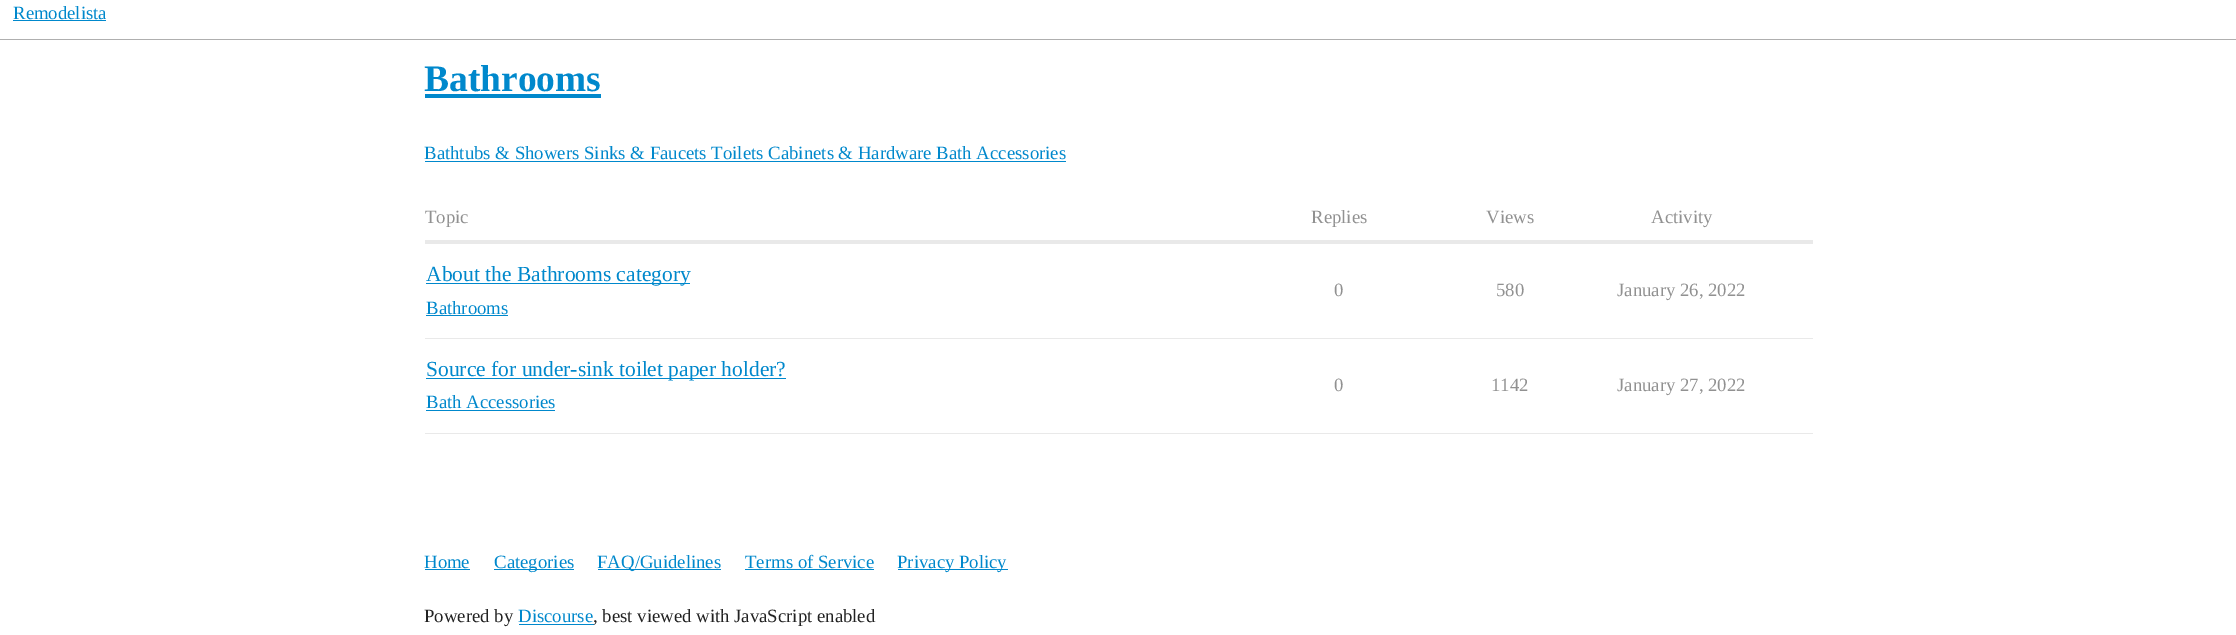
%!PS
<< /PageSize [2236 635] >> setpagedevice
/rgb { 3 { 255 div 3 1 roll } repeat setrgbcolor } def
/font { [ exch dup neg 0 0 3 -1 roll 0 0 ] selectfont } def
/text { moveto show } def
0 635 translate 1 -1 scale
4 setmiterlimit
255 255 255 rgb
0 0 2236 635 rectfill
175 175 175 rgb
0 39 2236 1 rectfill
0 136 204 rgb
13 20 93 1 rectfill
425 94 176 4 rectfill
425 161 641 1 rectfill
233 233 233 rgb
425 240 1388 4 rectfill
425 338 1388 1 rectfill
0 136 204 rgb
426 283 264 1 rectfill
426 315 82 1 rectfill
233 233 233 rgb
425 433 1388 1 rectfill
0 136 204 rgb
426 378 360 1 rectfill
426 410 129 1 rectfill
425 569 45 1 rectfill
494 569 80 1 rectfill
598 569 123 1 rectfill
745 569 129 1 rectfill
898 569 110 1 rectfill
519 624 75 1 rectfill
/LiberationSerif-Regular 18.75 font
(Remodelista) 13 19 text
/LiberationSerif-Bold 37.5 font
(Bathrooms) 424 91 text
/LiberationSerif-Regular 18.75 font
(Bathtubs & Showers Sinks & Faucets Toilets Cabinets & Hardware Bath Accessories) 424 159 text
145 145 145 rgb
(Topic) 425 223 text
(Replies) 1311 223 text
(Views) 1486 223 text
(Activity) 1651 223 text
/LiberationSerif-Regular 21.5 font
0 136 204 rgb
(About the Bathrooms category) 426 281 text
/LiberationSerif-Regular 18.75 font
(Bathrooms) 426 314 text
145 145 145 rgb
(0) 1334 296 text
(580) 1496 296 text
(January 26, 2022) 1617 296 text
/LiberationSerif-Regular 21.5 font
0 136 204 rgb
(Source for under-sink toilet paper holder?) 426 376 text
/LiberationSerif-Regular 18.75 font
(Bath Accessories) 426 408 text
145 145 145 rgb
(0) 1334 391 text
(1142) 1491 391 text
(January 27, 2022) 1617 391 text
0 136 204 rgb
(Home) 424 568 text
(Categories) 494 568 text
(FAQ/Guidelines) 597 568 text
(Terms of Service) 745 568 text
(Privacy Policy) 897 568 text
34 34 34 rgb
(Powered by) 424 622 text
0 136 204 rgb
(Discourse) 518 622 text
34 34 34 rgb
(, best viewed with JavaScript enabled) 593 622 text
showpage
